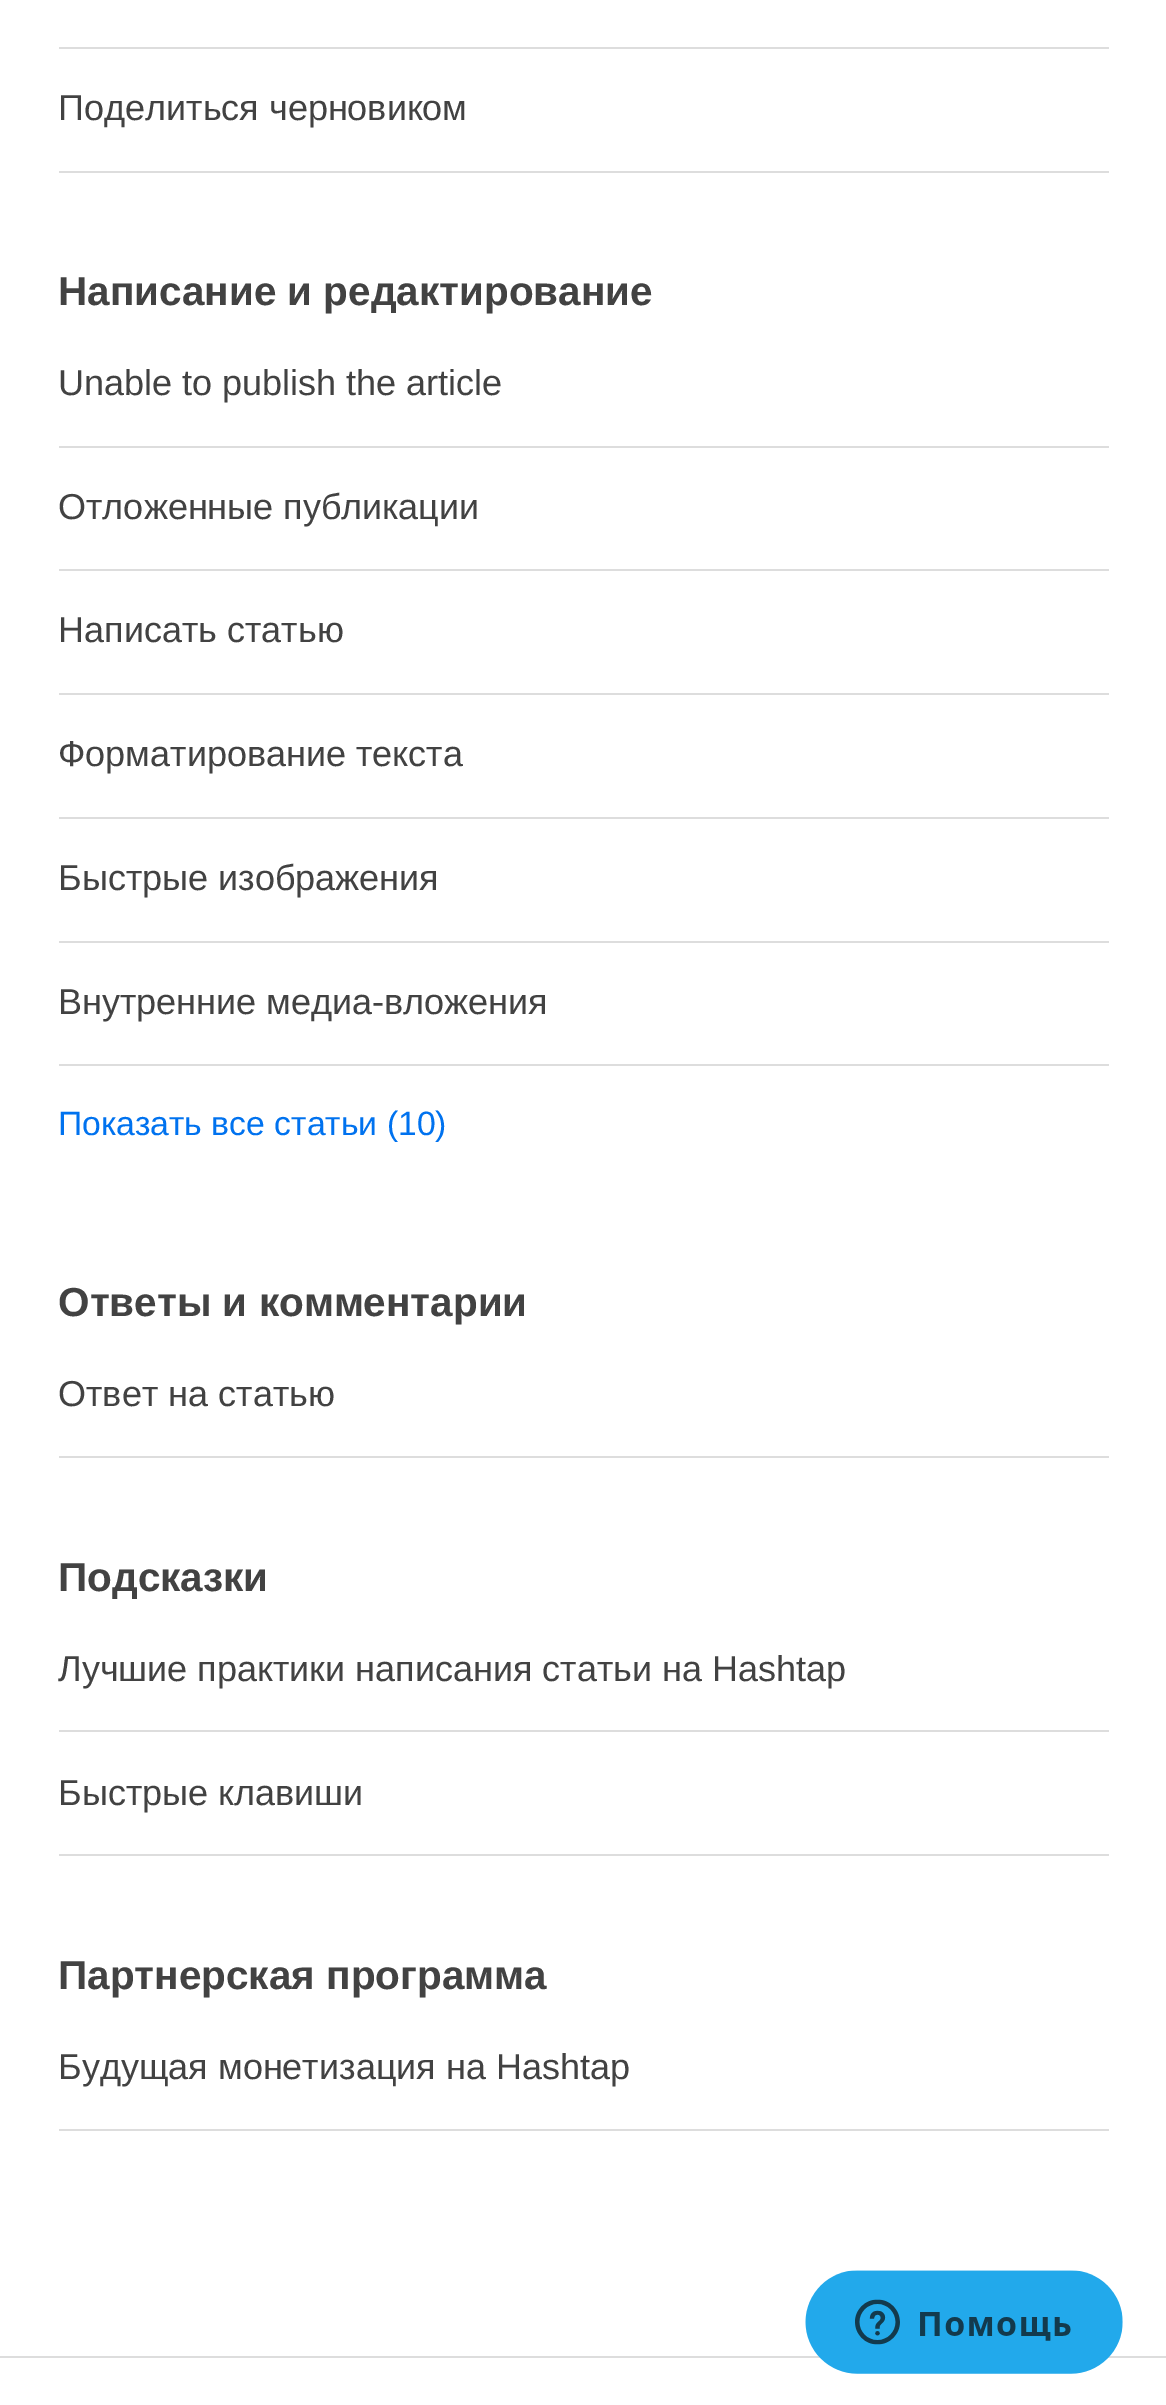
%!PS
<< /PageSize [1166 2405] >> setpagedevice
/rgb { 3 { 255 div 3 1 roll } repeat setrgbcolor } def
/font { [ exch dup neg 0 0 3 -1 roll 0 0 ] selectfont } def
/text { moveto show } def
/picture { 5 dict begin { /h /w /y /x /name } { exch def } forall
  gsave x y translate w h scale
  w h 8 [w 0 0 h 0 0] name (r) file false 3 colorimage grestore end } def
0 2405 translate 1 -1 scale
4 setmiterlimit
255 255 255 rgb
0 0 1166 2405 rectfill
221 221 221 rgb
59 47 1050 2 rectfill
59 171 1050 2 rectfill
59 446 1050 2 rectfill
59 569 1050 2 rectfill
59 693 1050 2 rectfill
59 817 1050 2 rectfill
59 941 1050 2 rectfill
59 1064 1050 2 rectfill
59 1456 1050 2 rectfill
59 1730 1050 2 rectfill
59 1854 1050 2 rectfill
59 2129 1050 2 rectfill
0 2356 1166 2 rectfill
(img_01.rgb) 805 2270 318 104 picture
/LiberationSans-Regular 36 font
66 66 66 rgb
(Поделиться черновиком) 58 120 text
/LiberationSans-Bold 40.5 font
(Написание и редактирование) 58 305 text
/LiberationSans-Regular 36 font
(Unable to publish the article) 58 395 text
(Отложенные публикации) 58 519 text
(Написать статью) 58 642 text
(Форматирование текста) 58 766 text
(Быстрые изображения) 58 890 text
(Внутренние медиа-вложения) 58 1014 text
/LiberationSans-Regular 33.75 font
0 114 239 rgb
(Показать все статьи \(10\)) 58 1135 text
/LiberationSans-Bold 40.5 font
66 66 66 rgb
(Ответы и комментарии) 58 1316 text
/LiberationSans-Regular 36 font
(Ответ на статью) 58 1406 text
/LiberationSans-Bold 40.5 font
(Подсказки) 58 1591 text
/LiberationSans-Regular 36 font
(Лучшие практики написания статьи на Hashtap) 58 1681 text
(Быстрые клавиши) 58 1805 text
/LiberationSans-Bold 40.5 font
(Партнерская программа) 58 1989 text
/LiberationSans-Regular 36 font
(Будущая монетизация на Hashtap) 58 2079 text
showpage
